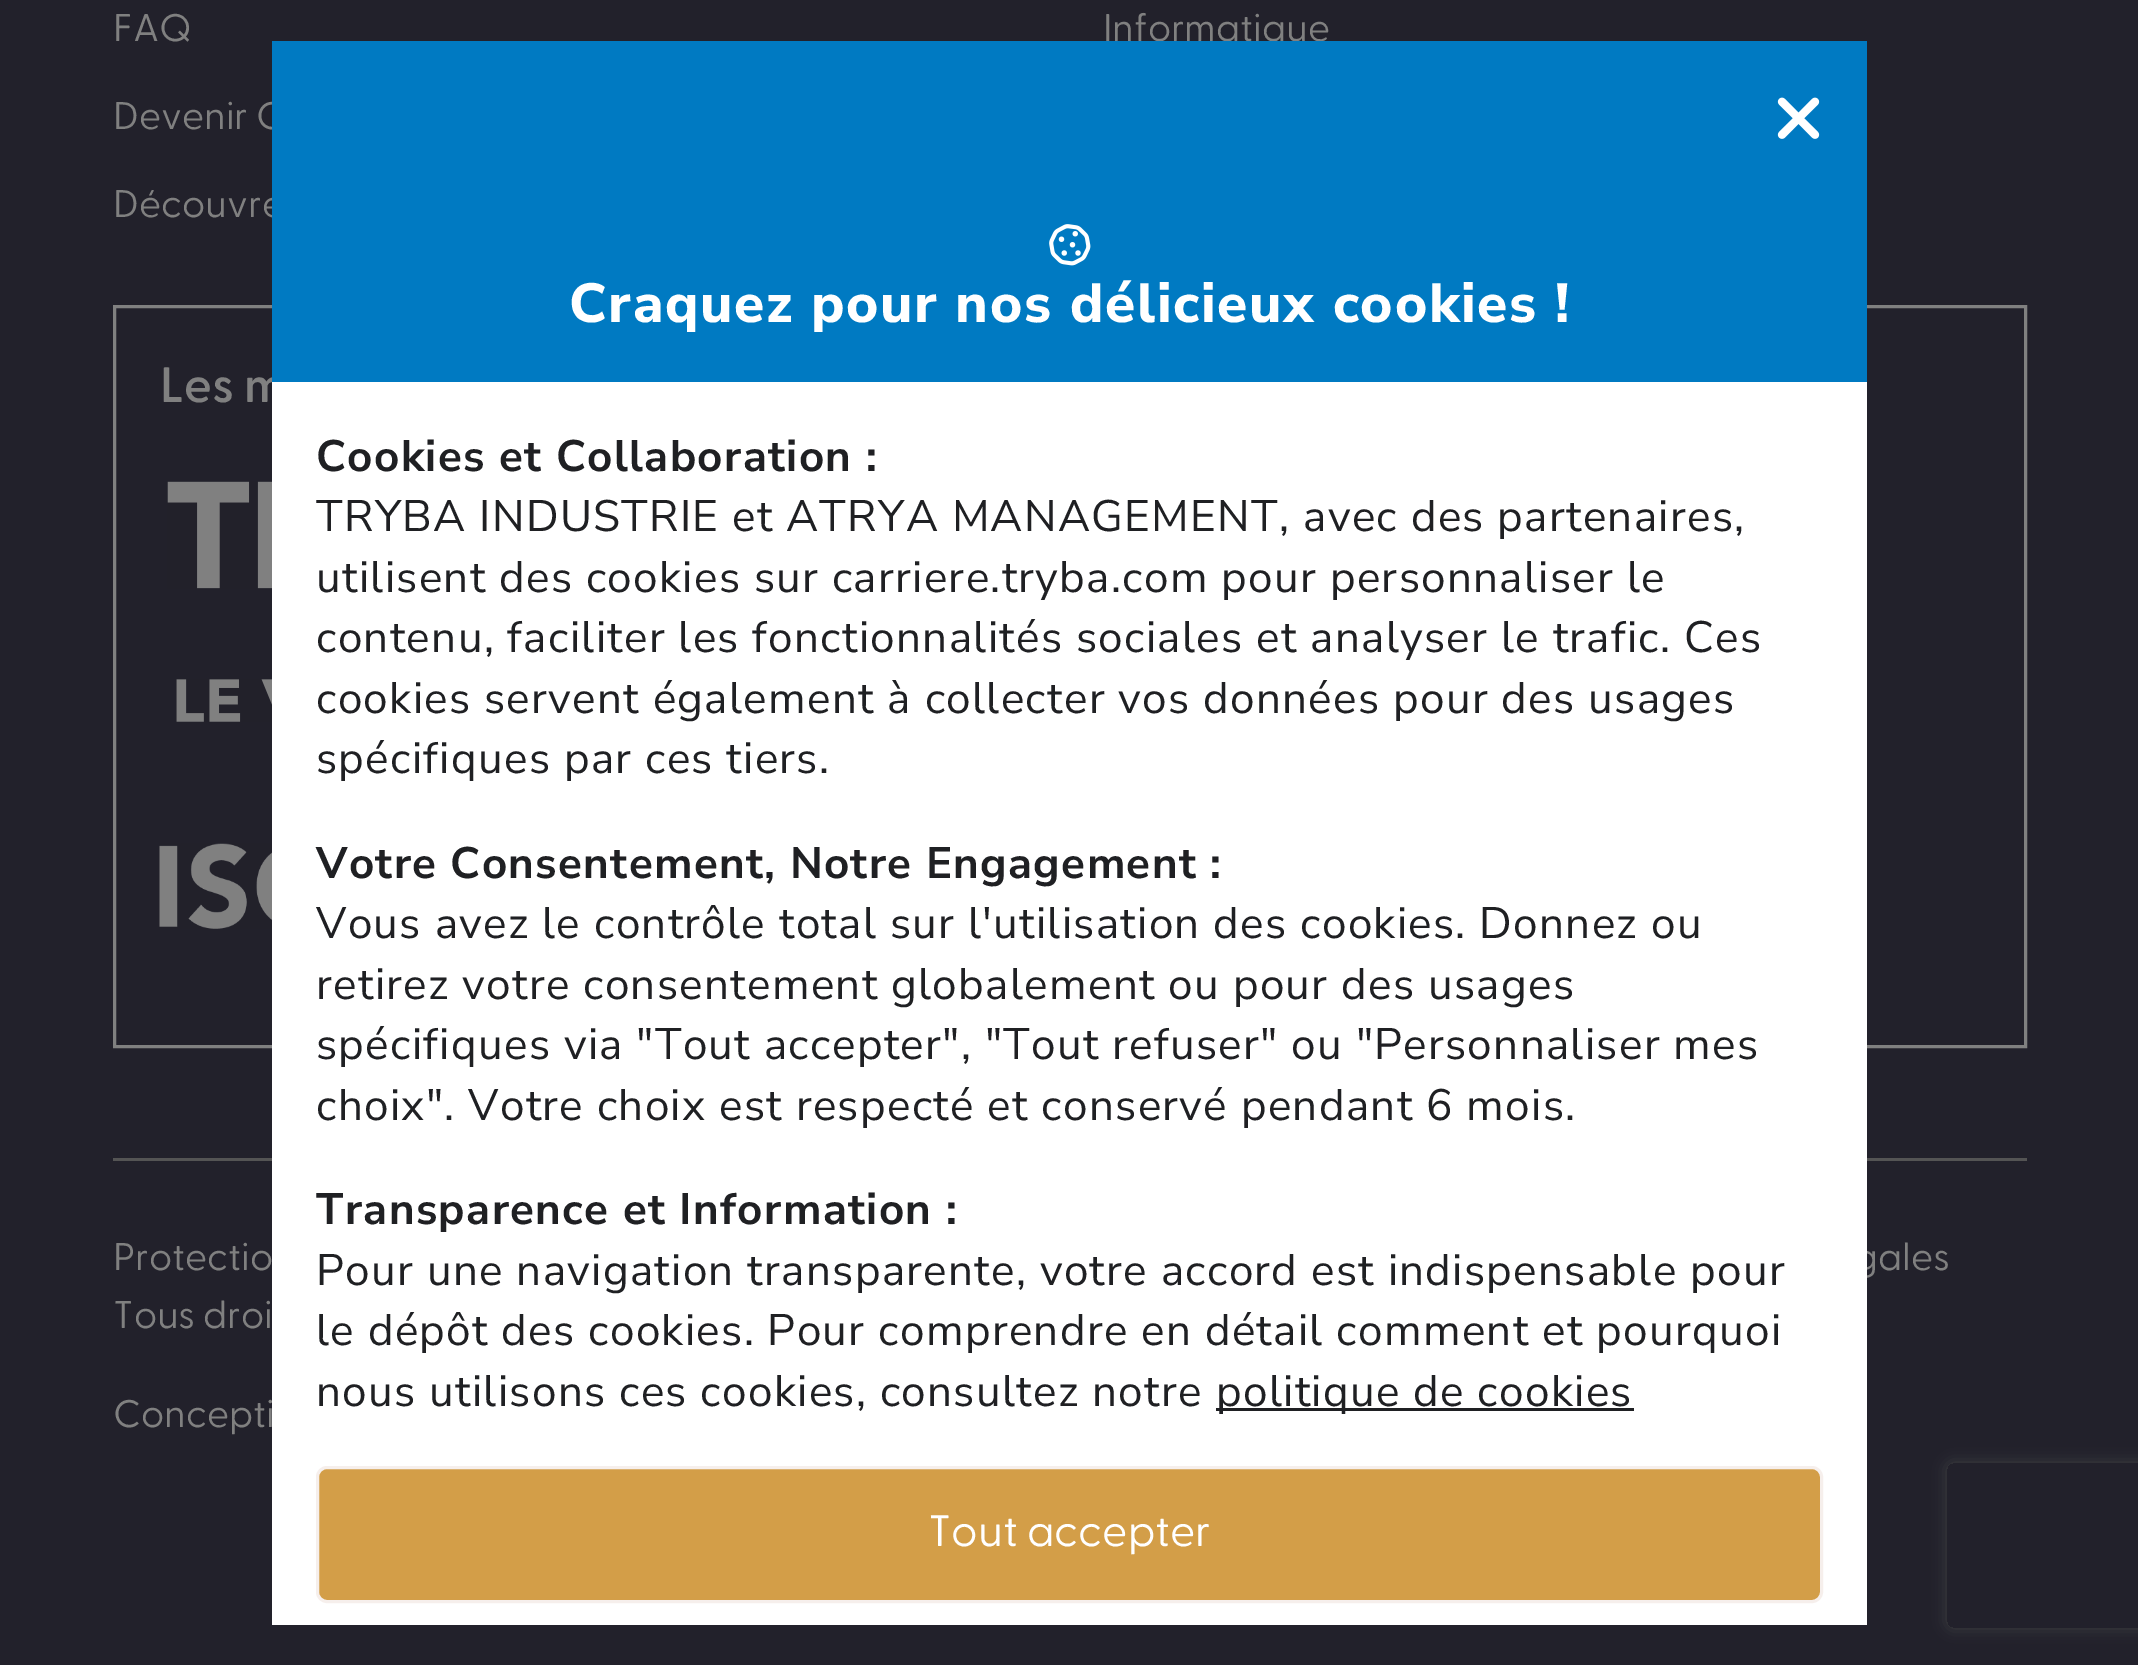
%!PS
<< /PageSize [2138 1665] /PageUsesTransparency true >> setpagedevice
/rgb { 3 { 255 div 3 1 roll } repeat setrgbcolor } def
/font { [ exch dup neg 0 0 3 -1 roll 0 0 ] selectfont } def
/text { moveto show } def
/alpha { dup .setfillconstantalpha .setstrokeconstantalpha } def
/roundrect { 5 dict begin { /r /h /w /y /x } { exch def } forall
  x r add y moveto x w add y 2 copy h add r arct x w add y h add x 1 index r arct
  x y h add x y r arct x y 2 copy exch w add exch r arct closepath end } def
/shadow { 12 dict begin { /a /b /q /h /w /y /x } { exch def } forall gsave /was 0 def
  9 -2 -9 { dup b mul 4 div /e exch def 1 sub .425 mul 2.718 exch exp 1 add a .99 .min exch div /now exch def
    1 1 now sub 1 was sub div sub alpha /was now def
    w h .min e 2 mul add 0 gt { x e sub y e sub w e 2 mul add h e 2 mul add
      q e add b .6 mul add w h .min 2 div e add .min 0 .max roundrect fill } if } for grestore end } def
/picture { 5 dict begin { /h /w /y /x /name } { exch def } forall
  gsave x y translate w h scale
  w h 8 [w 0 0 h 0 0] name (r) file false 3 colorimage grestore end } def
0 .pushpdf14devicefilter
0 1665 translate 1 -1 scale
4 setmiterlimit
34 33 43 rgb
0 0 2138 1665 rectfill
84 84 84 rgb
113 1158 1914 3 rectfill
128 128 128 rgb
3 setlinewidth
114.5 306.5 1911 740 rectstroke
(img_01.rgb) 167 481 105 108 picture
(img_02.rgb) 176 679 96 43 picture
(img_03.rgb) 159 843 113 86 picture
gsave
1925 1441 moveto 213 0 rlineto 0 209 rlineto -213 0 rlineto closepath 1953 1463 moveto 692 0 rlineto 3.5 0 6 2.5 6 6 rcurveto 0 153 rlineto 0 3.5 -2.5 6 -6 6 rcurveto -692 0 rlineto -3.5 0 -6 -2.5 -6 -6 rcurveto 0 -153 rlineto 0 -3.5 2.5 -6 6 -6 rcurveto closepath eoclip newpath
64 64 64 rgb
1947 1463 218 165 6 7 1 shadow
grestore
/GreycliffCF-Regular 38.5 font
(FAQ) 113 41 text
(Devenir C) 113 129 text
(Découvre) 113 217 text
(Informatique) 1103 41 text
/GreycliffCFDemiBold-SemiBold 49.5 font
(Les m) 160 402 text
/GreycliffCF-Regular 38.5 font
(Protectio) 113 1270 text
(gales) 1854 1270 text
(Tous droi) 113 1328 text
(Concepti) 113 1427 text
255 255 255 rgb
272 382 1595 1243 rectfill
0 122 194 rgb
272 41 1595 341 rectfill
(img_04.rgb) 1777 97 43 42 picture
(img_05.rgb) 1049 224 42 42 picture
/NunitoSans-ExtraBold 55 font
255 255 255 rgb
569 322 moveto 1.65 0 (Craquez pour nos délicieux cookies !) ashow
/NunitoSans-Bold 44 font
31 32 35 rgb
316 471 moveto 1.32 0 (Cookies et Collaboration :) ashow
/NunitoSans-Regular 44 font
316 531 moveto 1.32 0 (TRYBA INDUSTRIE et ATRYA MANAGEMENT, avec des partenaires,) ashow
316 592 moveto 1.32 0 (utilisent des cookies sur carriere.tryba.com pour personnaliser le) ashow
316 652 moveto 1.32 0 (contenu, faciliter les fonctionnalités sociales et analyser le trafic. Ces) ashow
316 713 moveto 1.32 0 (cookies servent également à collecter vos données pour des usages) ashow
316 773 moveto 1.32 0 (spécifiques par ces tiers.) ashow
/NunitoSans-Bold 44 font
316 878 moveto 1.32 0 (Votre Consentement, Notre Engagement :) ashow
/NunitoSans-Regular 44 font
316 938 moveto 1.32 0 (Vous avez le contrôle total sur l'utilisation des cookies. Donnez ou) ashow
316 999 moveto 1.32 0 (retirez votre consentement globalement ou pour des usages) ashow
316 1059 moveto 1.32 0 (spécifiques via "Tout accepter", "Tout refuser" ou "Personnaliser mes) ashow
316 1120 moveto 1.32 0 (choix". Votre choix est respecté et conservé pendant 6 mois.) ashow
/NunitoSans-Bold 44 font
316 1224 moveto 1.32 0 (Transparence et Information :) ashow
/NunitoSans-Regular 44 font
316 1285 moveto 1.32 0 (Pour une navigation transparente, votre accord est indispensable pour) ashow
316 1345 moveto 1.32 0 (le dépôt des cookies. Pour comprendre en détail comment et pourquoi) ashow
316 1406 moveto 1.32 0 (nous utilisons ces cookies, consultez notre) ashow
1216 1408 418 3 rectfill
1216 1406 moveto 1.32 0 (politique de cookies) ashow
211 158 72 rgb
317.5 1467.5 1504 134 9.5 roundrect gsave fill grestore
246 239 236 rgb
stroke
/GreycliffCF-Regular 44 font
255 255 255 rgb
(Tout accepter) 928 1546 text
.poppdf14devicefilter showpage
